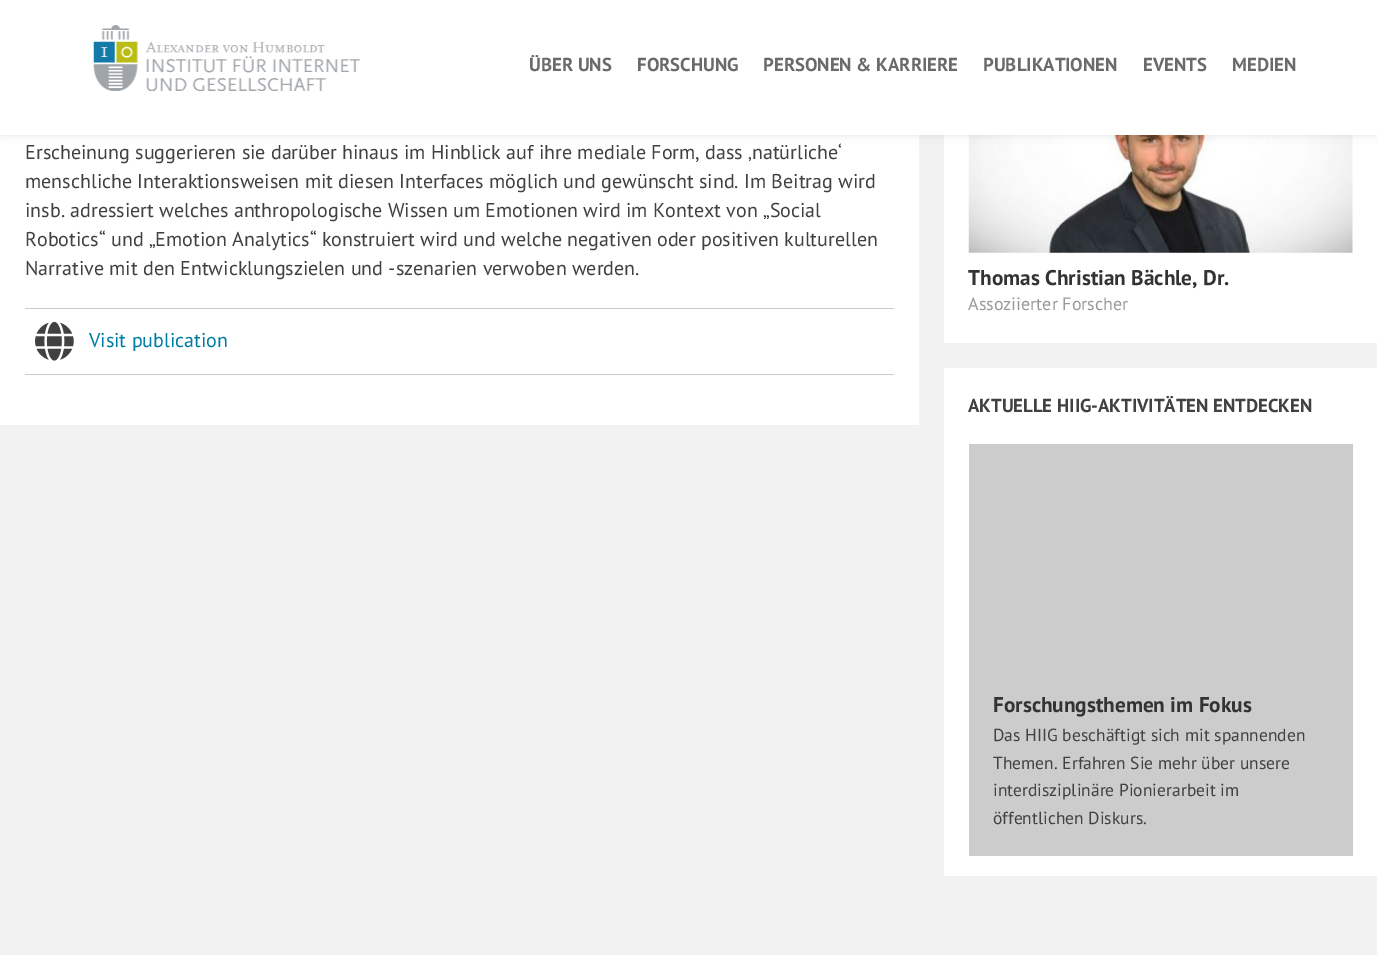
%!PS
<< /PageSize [1377 955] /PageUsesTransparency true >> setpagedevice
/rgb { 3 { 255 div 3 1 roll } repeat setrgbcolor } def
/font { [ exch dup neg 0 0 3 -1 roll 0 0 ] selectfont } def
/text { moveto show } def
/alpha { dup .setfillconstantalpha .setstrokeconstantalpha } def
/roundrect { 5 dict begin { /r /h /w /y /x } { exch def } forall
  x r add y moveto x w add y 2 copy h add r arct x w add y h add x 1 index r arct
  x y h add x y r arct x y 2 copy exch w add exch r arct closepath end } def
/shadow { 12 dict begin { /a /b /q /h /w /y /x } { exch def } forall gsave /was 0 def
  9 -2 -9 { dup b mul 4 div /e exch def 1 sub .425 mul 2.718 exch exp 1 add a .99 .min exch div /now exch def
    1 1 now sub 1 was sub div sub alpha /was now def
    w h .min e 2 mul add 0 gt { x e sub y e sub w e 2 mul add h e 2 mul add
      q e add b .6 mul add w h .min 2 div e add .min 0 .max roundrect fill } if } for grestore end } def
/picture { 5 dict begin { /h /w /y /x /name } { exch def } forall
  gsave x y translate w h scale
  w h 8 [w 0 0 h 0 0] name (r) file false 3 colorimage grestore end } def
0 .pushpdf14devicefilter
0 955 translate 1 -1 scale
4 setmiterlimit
242 242 242 rgb
0 0 1377 955 rectfill
255 255 255 rgb
0 135 919 290 rectfill
944 135 433 208 rectfill
(img_03.rgb) 968 135 385 118 picture
0 0 0 rgb
0 0 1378 135 0 4.5 0.1 shadow
255 255 255 rgb
0 0 1377 135 rectfill
(img_01.rgb) 93 25 267 66 picture
204 204 204 rgb
25 308 869 1 rectfill
25 374 869 1 rectfill
(img_02.rgb) 35 321 39 40 picture
255 255 255 rgb
944 368 433 508 rectfill
204 204 204 rgb
969 444 384 412 rectfill
/PTSans-Bold 18.75 font
106 106 106 rgb
(ÜBER UNS) 529 71 text
(FORSCHUNG) 637 71 text
(PERSONEN & KARRIERE) 763 71 text
(PUBLIKATIONEN) 983 71 text
(EVENTS) 1143 71 text
(MEDIEN) 1232 71 text
/PTSans-Regular 20 font
65 65 65 rgb
(Erscheinung suggerieren sie darüber hinaus im Hinblick auf ihre mediale Form, dass ‚natürliche‘) 25 159 text
(menschliche Interaktionsweisen mit diesen Interfaces möglich und gewünscht sind. Im Beitrag wird) 25 188 text
(insb. adressiert welches anthropologische Wissen um Emotionen wird im Kontext von „Social) 25 217 text
(Robotics“ und „Emotion Analytics“ konstruiert wird und welche negativen oder positiven kulturellen) 25 246 text
(Narrative mit den Entwicklungszielen und -szenarien verwoben werden.) 25 275 text
0 123 163 rgb
(Visit publication) 89 347 text
/PTSans-Bold 21.25 font
51 51 51 rgb
(Thomas Christian Bächle, Dr.) 968 285 text
/PTSans-Regular 18 font
153 153 153 rgb
(Assoziierter Forscher) 968 310 text
/PTSans-Bold 18.75 font
65 65 65 rgb
(AKTUELLE HIIG-AKTIVITÄTEN ENTDECKEN) 968 412 text
/PTSans-Bold 21.25 font
51 51 51 rgb
(Forschungsthemen im Fokus) 993 712 text
/PTSans-Regular 17.5 font
65 65 65 rgb
(Das HIIG beschäftigt sich mit spannenden) 993 741 text
(Themen. Erfahren Sie mehr über unsere) 993 769 text
(interdisziplinäre Pionierarbeit im) 993 796 text
(öffentlichen Diskurs.) 993 824 text
.poppdf14devicefilter showpage
